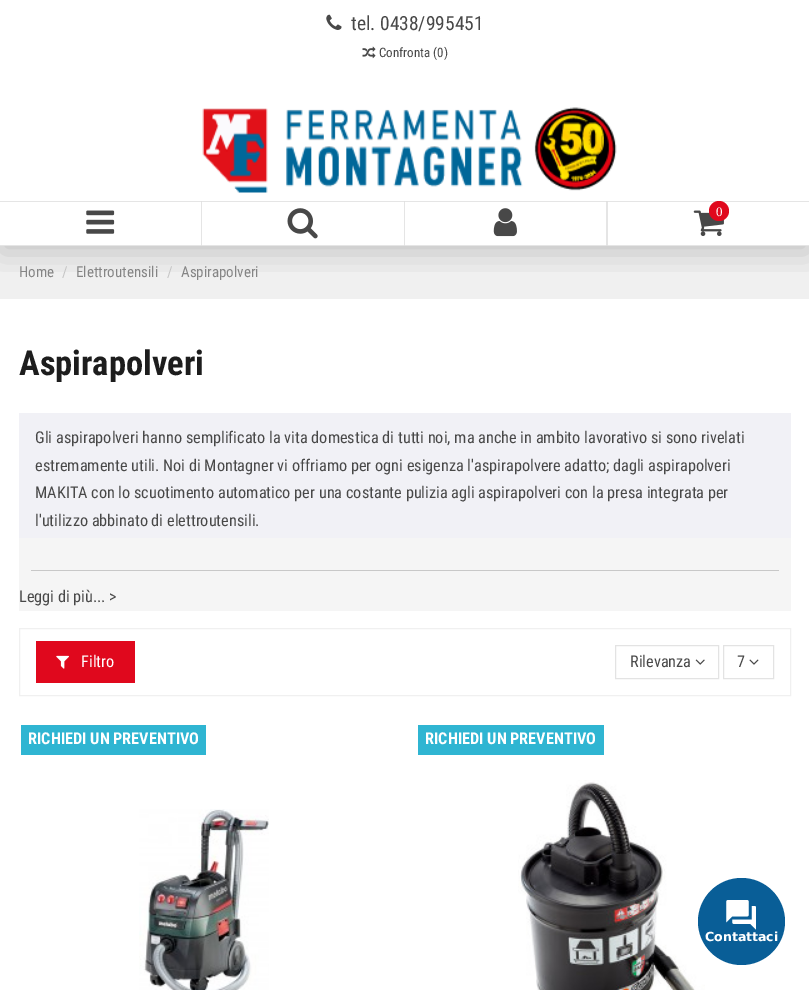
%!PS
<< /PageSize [809 990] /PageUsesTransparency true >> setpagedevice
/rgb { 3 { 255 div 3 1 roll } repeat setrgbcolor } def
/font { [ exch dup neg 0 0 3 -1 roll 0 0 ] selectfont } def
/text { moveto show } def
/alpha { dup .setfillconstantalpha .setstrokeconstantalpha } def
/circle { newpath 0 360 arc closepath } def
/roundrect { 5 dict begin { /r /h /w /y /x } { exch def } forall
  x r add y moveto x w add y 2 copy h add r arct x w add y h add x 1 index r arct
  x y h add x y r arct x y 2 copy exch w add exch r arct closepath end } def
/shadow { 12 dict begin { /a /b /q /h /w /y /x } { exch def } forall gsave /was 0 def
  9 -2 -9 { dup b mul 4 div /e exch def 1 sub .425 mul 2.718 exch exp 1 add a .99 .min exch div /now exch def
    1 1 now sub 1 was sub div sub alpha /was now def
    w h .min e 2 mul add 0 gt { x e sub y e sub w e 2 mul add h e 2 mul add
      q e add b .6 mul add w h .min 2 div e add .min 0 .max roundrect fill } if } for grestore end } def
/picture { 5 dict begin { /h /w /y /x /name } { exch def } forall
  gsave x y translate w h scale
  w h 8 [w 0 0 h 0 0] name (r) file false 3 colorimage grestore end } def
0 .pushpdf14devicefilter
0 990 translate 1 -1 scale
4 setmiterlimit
255 255 255 rgb
0 0 809 990 rectfill
240 240 240 rgb
0 246 809 53 rectfill
gsave
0 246 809 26 rectclip
0 0 0 rgb
0 6 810 247 0 15.5 0.18 shadow
grestore
(img_01.rgb) 326 14 16 16 picture
(img_02.rgb) 362 46 14 13 picture
(img_03.rgb) 202 107 415 86 picture
229 229 229 rgb
0 201 moveto 202 0 rlineto -1 1 rlineto -201 0 rlineto closepath fill
0.11 alpha
21 21 21 rgb
202 201 moveto 0 45 rlineto -1 -1 rlineto 0 -43 rlineto closepath fill
202 246 moveto -202 0 rlineto 0 -1 rlineto 201 0 rlineto closepath fill
1 alpha
(img_04.rgb) 86 210 29 24 picture
229 229 229 rgb
202 201 moveto 203 0 rlineto -1 1 rlineto -202 0 rlineto closepath fill
0.11 alpha
21 21 21 rgb
405 201 moveto 0 45 rlineto -1 -1 rlineto 0 -43 rlineto closepath fill
405 246 moveto -203 0 rlineto 0 -1 rlineto 202 0 rlineto closepath fill
1 alpha
(img_05.rgb) 287 208 31 31 picture
229 229 229 rgb
405 201 moveto 203 0 rlineto -2 1 rlineto -201 0 rlineto closepath fill
0.11 alpha
21 21 21 rgb
608 201 moveto 0 45 rlineto -2 -1 rlineto 0 -43 rlineto closepath fill
608 246 moveto -203 0 rlineto 0 -1 rlineto 201 0 rlineto closepath fill
1 alpha
(img_06.rgb) 493 208 24 29 picture
229 229 229 rgb
608 201 201 1 rectfill
608 245 201 1 rectfill
(img_07.rgb) 693 210 31 27 picture
224 8 29 rgb
719 211 10 circle fill
245 245 245 rgb
19 538 772 73 rectfill
241 241 246 rgb
19 413 772 125 rectfill
200 200 200 rgb
31 570 748 1 rectfill
240 240 240 rgb
19.5 628.5 771 67 rectstroke
224 8 29 rgb
36 641 99 42 rectfill
(img_08.rgb) 56 655 13 14 picture
227 227 227 rgb
615.5 645.5 103 33 rectstroke
(img_09.rgb) 695 659 10 6 picture
723.5 645.5 50 33 rectstroke
(img_10.rgb) 749 659 10 6 picture
47 181 210 rgb
21 725 185 30 rectfill
(img_11.rgb) 139 809 130 181 picture
418 725 186 30 rectfill
(img_12.rgb) 518 780 187 210 picture
9 94 151 rgb
741.5 921.5 43.5 circle fill
(img_13.rgb) 726 900 30 30 picture
/RobotoCondensed-Regular 19.5 font
72 72 72 rgb
(tel. 0438/995451) 351 30 text
/RobotoCondensed-Regular 13 font
(Confronta \(0\)) 379 57 text
/LiberationSerif-Regular 13 font
255 255 255 rgb
(0) 716 216 text
/RobotoCondensed-Regular 15 font
133 133 133 rgb
(Home) 19 277 text
197 197 197 rgb
(/) 62 277 text
133 133 133 rgb
(Elettroutensili) 76 277 text
197 197 197 rgb
(/) 167 277 text
133 133 133 rgb
(Aspirapolveri) 181 277 text
/RobotoCondensed-Bold 34.5 font
29 29 29 rgb
(Aspirapolveri) 19 375 text
/RobotoCondensed-Regular 16.25 font
72 72 72 rgb
(Gli aspirapolveri hanno semplificato la vita domestica di tutti noi, ma anche in ambito lavorativo si sono rivelati) 35 443 text
(estremamente utili. Noi di Montagner vi offriamo per ogni esigenza l'aspirapolvere adatto; dagli aspirapolveri) 35 471 text
(MAKITA con lo scuotimento automatico per una costante pulizia agli aspirapolveri con la presa integrata per) 35 498 text
(l'utilizzo abbinato di elettroutensili.) 35 526 text
(Leggi di più... >) 19 602 text
255 255 255 rgb
(Filtro) 81 667 text
72 72 72 rgb
(Rilevanza) 630 667 text
(7) 737 667 text
/RobotoCondensed-Bold 16.25 font
255 255 255 rgb
(RICHIEDI UN PREVENTIVO) 28 744 text
(RICHIEDI UN PREVENTIVO) 425 744 text
/DejaVuSans-Bold 12.5 font
(Contattaci) 705 941 text
.poppdf14devicefilter showpage
